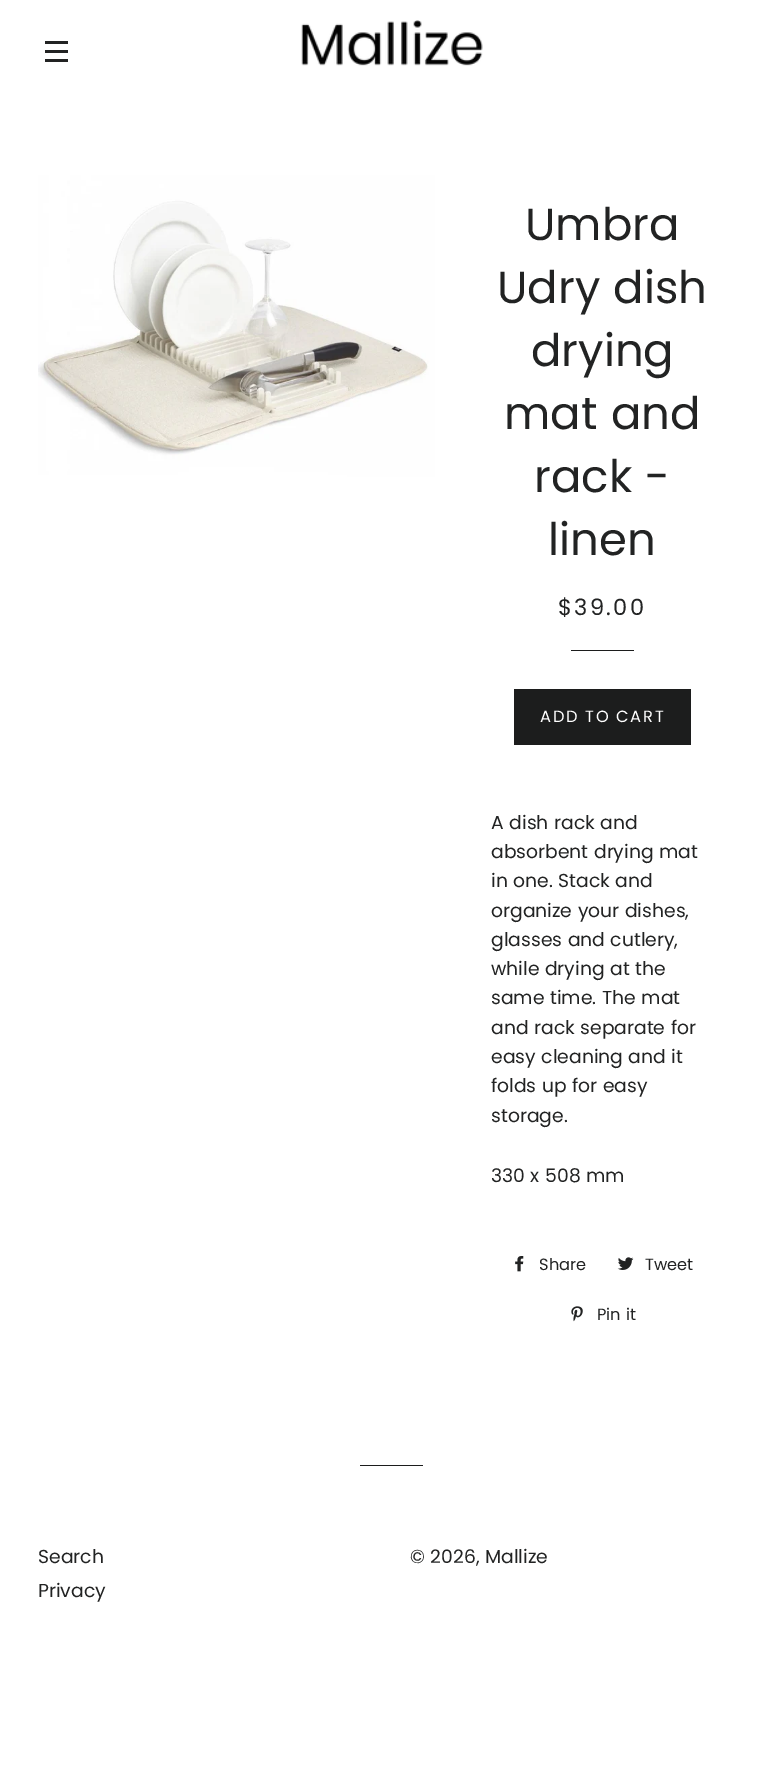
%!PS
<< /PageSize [782 1790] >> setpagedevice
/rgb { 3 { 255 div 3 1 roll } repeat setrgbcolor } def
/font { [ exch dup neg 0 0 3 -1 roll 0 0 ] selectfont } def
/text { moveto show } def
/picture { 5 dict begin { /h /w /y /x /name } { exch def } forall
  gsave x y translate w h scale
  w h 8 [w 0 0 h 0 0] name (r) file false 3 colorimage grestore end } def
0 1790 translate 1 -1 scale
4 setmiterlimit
255 255 255 rgb
0 0 782 1790 rectfill
34 35 35 rgb
45 41 23 3 rectfill
45 50 23 3 rectfill
45 59 23 3 rectfill
(img_01.rgb) 301 20 182 46 picture
(img_02.rgb) 38 138 397 397 picture
28 29 29 rgb
571 650 63 1 rectfill
514 689 177 56 rectfill
(img_03.rgb) 515 1256 9 16 picture
(img_04.rgb) 617 1257 17 13 picture
(img_05.rgb) 571 1306 12 16 picture
360 1465 63 1 rectfill
/Poppins-Regular 45 font
34 35 35 rgb
(Umbra) 525 240 text
(Udry dish) 497 303 text
(drying) 531 366 text
(mat and) 504 429 text
(rack -) 534 492 text
(linen) 548 555 text
/Poppins-Regular 22.5 font
558 615 moveto 2.25 0 ($39.00) ashow
/Poppins-Regular 16.25 font
255 255 255 rgb
540 722 moveto 1.6 0 (ADD TO CART) ashow
/Poppins-Regular 18.75 font
34 35 35 rgb
(A dish rack and) 491 829 text
(absorbent drying mat) 491 858 text
(in one. Stack and) 491 887 text
(organize your dishes,) 491 917 text
(glasses and cutlery,) 491 946 text
(while drying at the) 491 975 text
(same time. The mat) 491 1004 text
(and rack separate for) 491 1034 text
(easy cleaning and it) 491 1063 text
(folds up for easy) 491 1092 text
(storage.) 491 1122 text
(330 x 508 mm) 491 1182 text
/Poppins-Regular 16.25 font
(Share) 539 1270 text
(Tweet) 645 1270 text
(Pin it) 597 1320 text
/Poppins-Regular 18.75 font
(Search) 38 1563 text
(Privacy) 38 1597 text
(© 2026, Mallize) 410 1563 text
showpage
